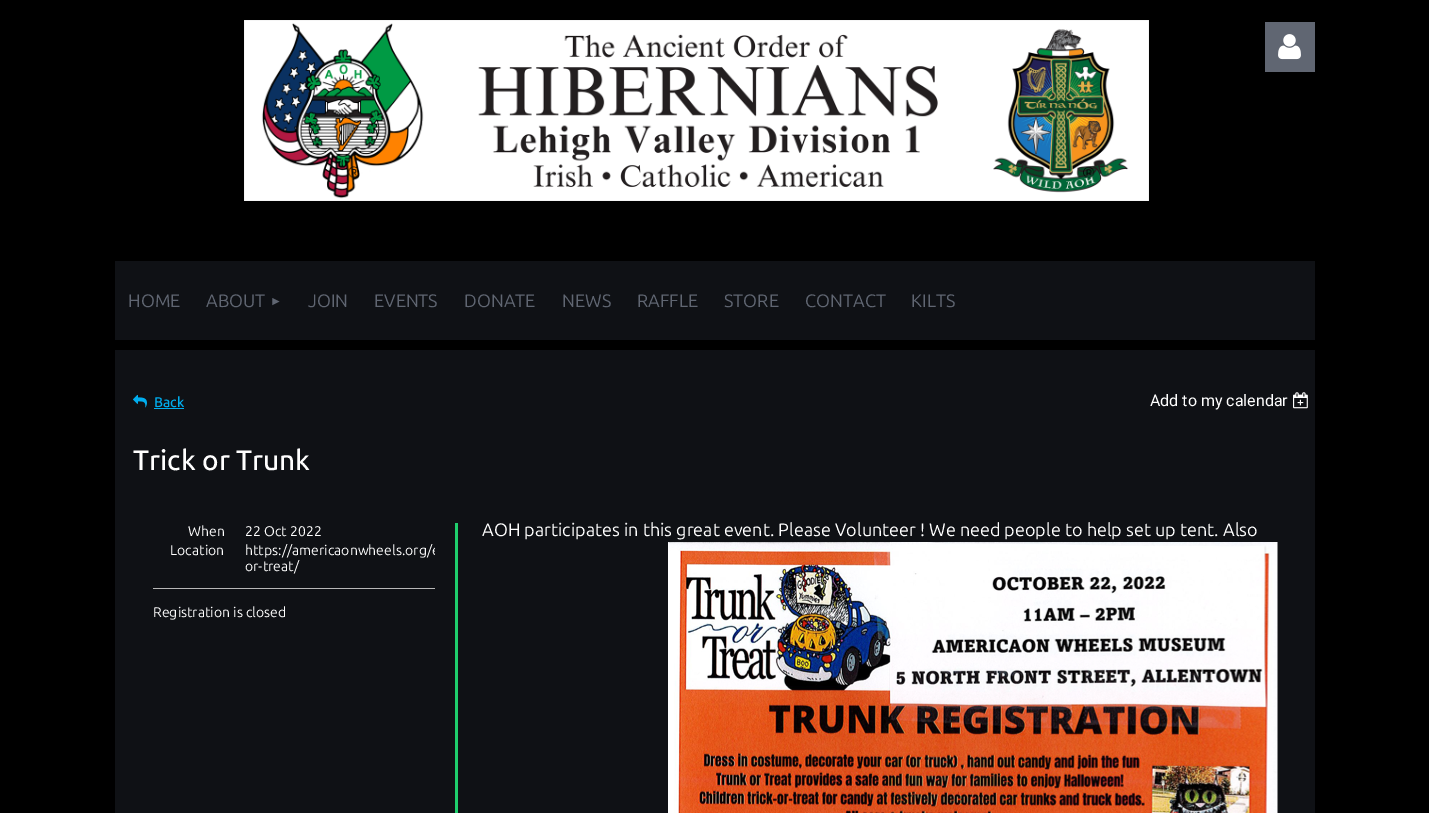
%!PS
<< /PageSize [1429 813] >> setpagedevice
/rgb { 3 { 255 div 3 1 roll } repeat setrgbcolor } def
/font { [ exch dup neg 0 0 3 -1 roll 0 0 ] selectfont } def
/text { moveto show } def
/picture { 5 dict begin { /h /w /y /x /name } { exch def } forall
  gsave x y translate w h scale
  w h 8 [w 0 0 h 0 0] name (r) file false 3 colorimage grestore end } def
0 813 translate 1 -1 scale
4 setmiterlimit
0 0 0 rgb
0 0 1429 813 rectfill
(img_01.rgb) 244 20 905 181 picture
96 102 114 rgb
1265 22 50 50 rectfill
(img_02.rgb) 1278 34 23 26 picture
15 17 21 rgb
115 261 1200 79 rectfill
115 350 1200 463 rectfill
(img_03.rgb) 133 394 14 14 picture
0 174 239 rgb
154 408 30 1 rectfill
(img_04.rgb) 1293 392 15 17 picture
31 207 109 rgb
455 523 3 290 rectfill
183 183 183 rgb
153 588 282 1 rectfill
(img_05.rgb) 668 542 610 271 picture
/Ubuntu-Regular 18 font
96 102 114 rgb
(HOME) 128 307 text
(ABOUT) 206 307 text
/LiberationSans-Regular 12 font
(►) 270 305 text
/Ubuntu-Regular 18 font
(JOIN) 308 307 text
(EVENTS) 374 307 text
(DONATE) 464 307 text
(NEWS) 562 307 text
(RAFFLE) 637 307 text
(STORE) 724 307 text
(CONTACT) 805 307 text
(KILTS) 911 307 text
/Ubuntu-Medium 14 font
0 174 239 rgb
(Back) 154 407 text
/Roboto-Regular 16 font
255 255 255 rgb
(Add to my calendar) 1150 406 text
/Ubuntu-Medium 28 font
(Trick or Trunk) 133 470 text
/Ubuntu-Regular 14 font
(When) 188 536 text
(22 Oct 2022) 245 536 text
(Location) 170 555 text
gsave
245 542 190 32 rectclip
(https://americaonwheels.org/e) 245 555 text
grestore
(or-treat/) 245 571 text
(Registration is closed) 153 617 text
/Ubuntu-Regular 18 font
(AOH participates in this great event. Please Volunteer ! We need people to help set up tent. Also) 482 536 text
showpage
